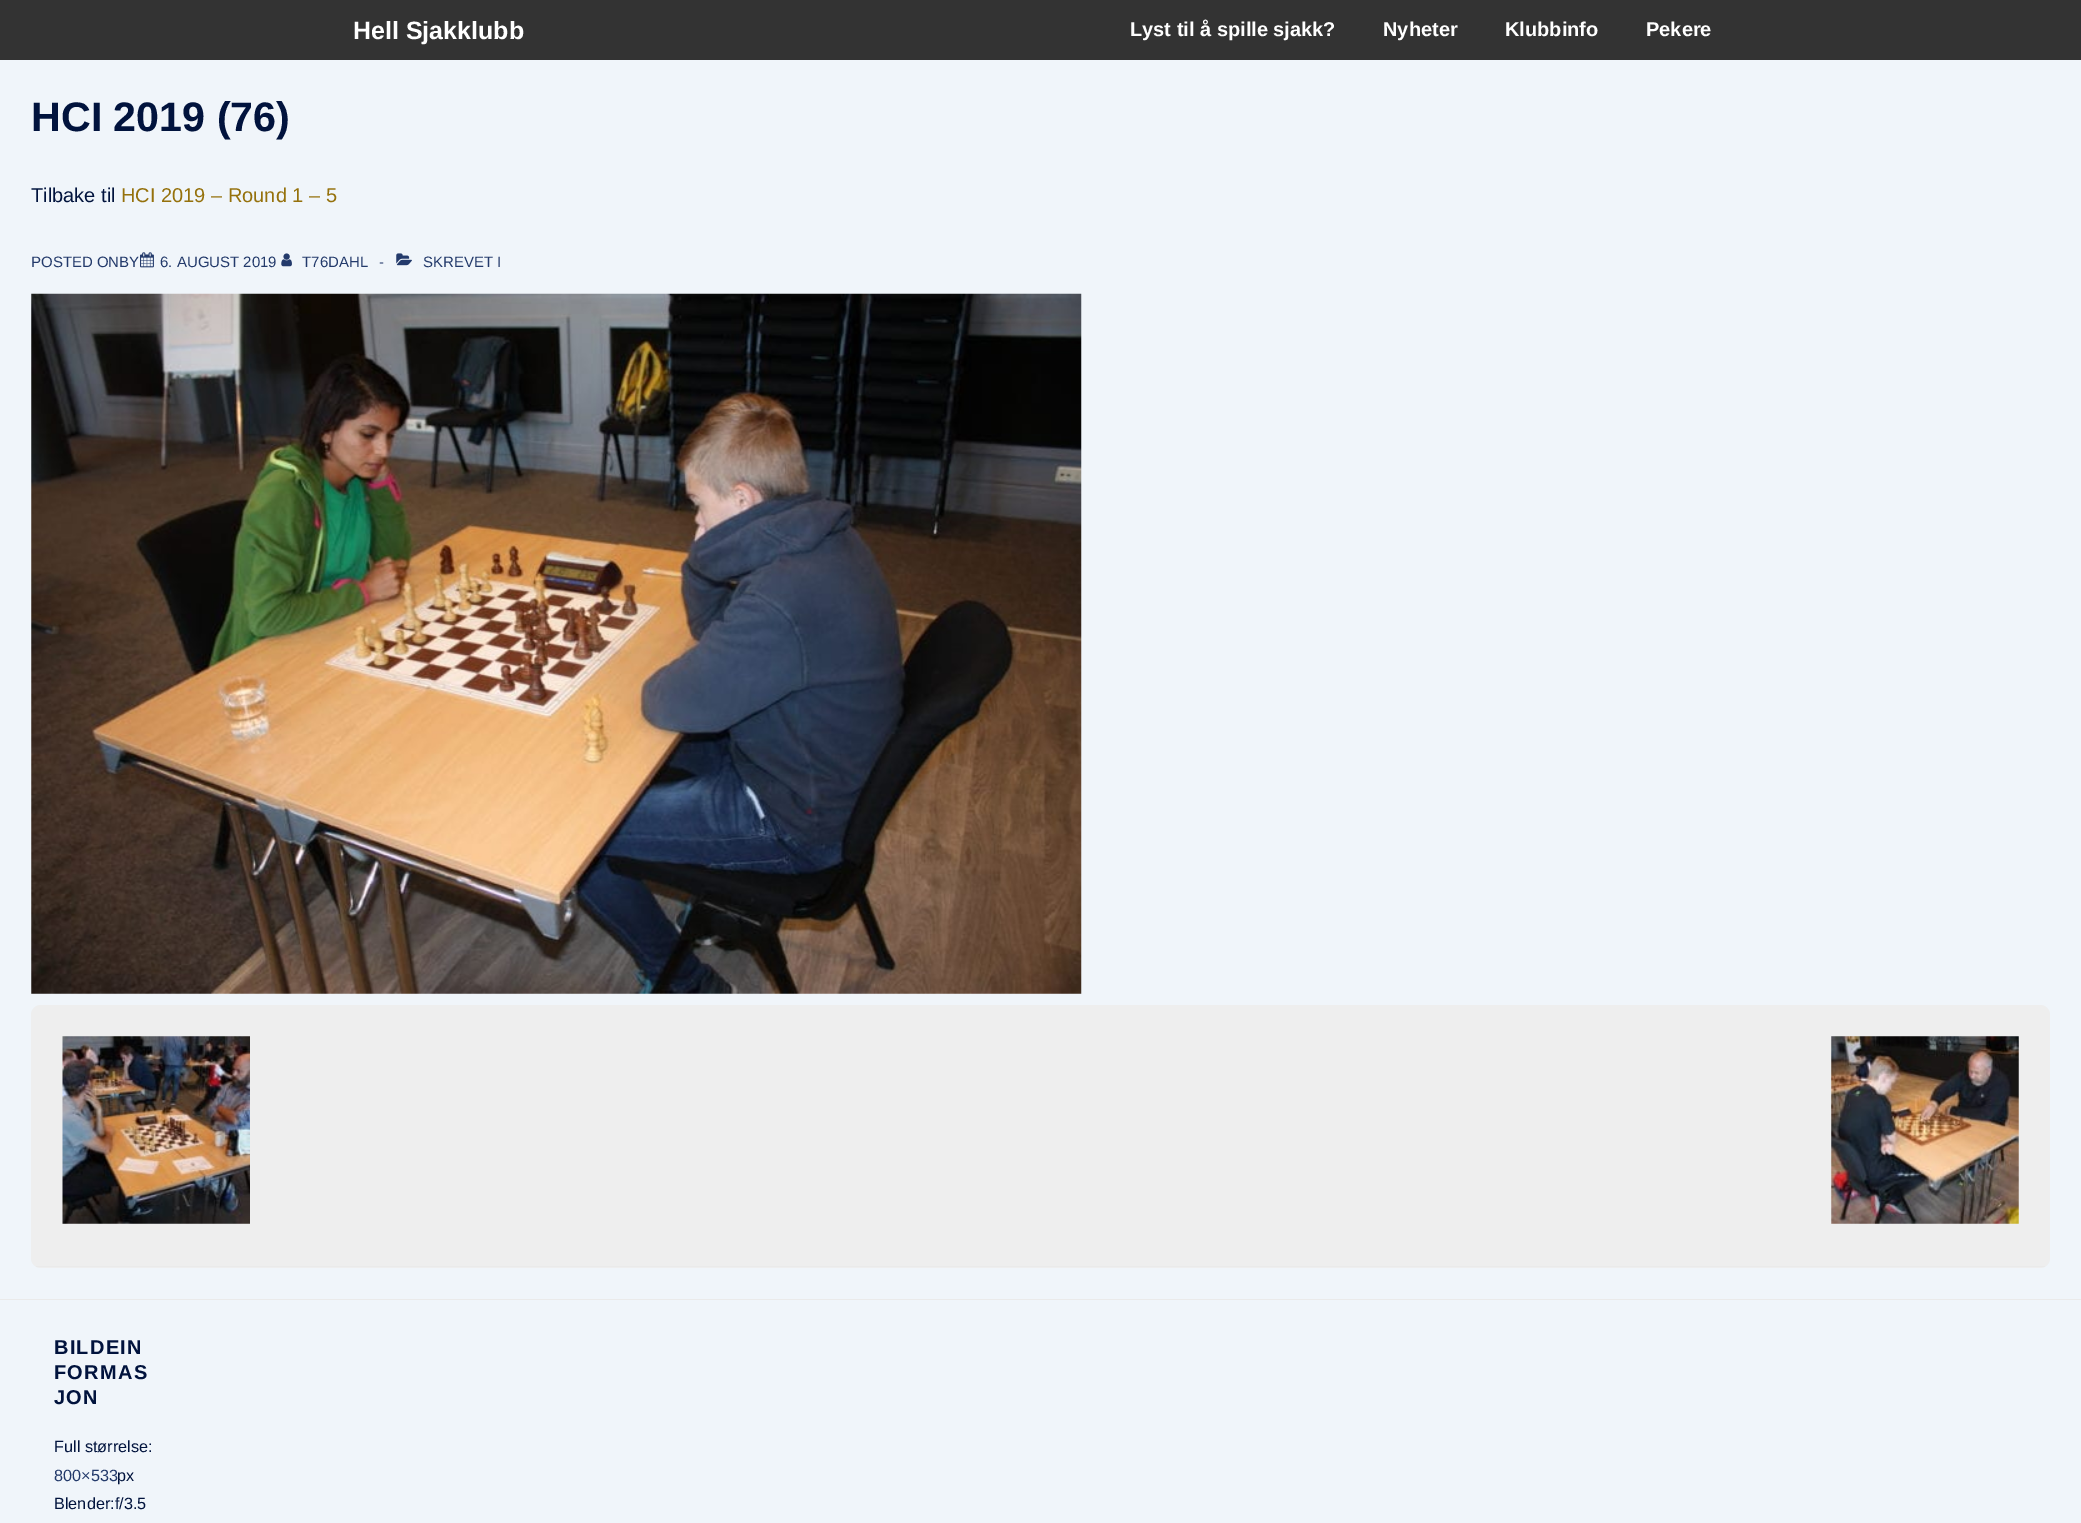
%!PS
<< /PageSize [2081 1523] >> setpagedevice
/rgb { 3 { 255 div 3 1 roll } repeat setrgbcolor } def
/font { [ exch dup neg 0 0 3 -1 roll 0 0 ] selectfont } def
/text { moveto show } def
/roundrect { 5 dict begin { /r /h /w /y /x } { exch def } forall
  x r add y moveto x w add y 2 copy h add r arct x w add y h add x 1 index r arct
  x y h add x y r arct x y 2 copy exch w add exch r arct closepath end } def
/picture { 5 dict begin { /h /w /y /x /name } { exch def } forall
  gsave x y translate w h scale
  w h 8 [w 0 0 h 0 0] name (r) file false 3 colorimage grestore end } def
0 1523 translate 1 -1 scale
4 setmiterlimit
240 245 250 rgb
0 0 2081 1523 rectfill
51 51 51 rgb
0 0 2081 60 rectfill
234 234 234 rgb
0 1299 2081 1 rectfill
(img_01.rgb) 140 252 14 16 picture
(img_02.rgb) 281 253 11 14 picture
(img_03.rgb) 396 253 16 13 picture
(img_04.rgb) 31 293 1051 701 picture
238 238 238 rgb
31 1005 2019 263 10 roundrect fill
234 234 234 rgb
36 1266 2009 1 rectfill
(img_05.rgb) 62 1036 188 188 picture
(img_06.rgb) 1831 1036 188 188 picture
/LiberationSans-Bold 25 font
255 255 255 rgb
(Hell Sjakklubb) 353 39 text
/LiberationSans-Bold 20 font
(Lyst til å spille sjakk?) 1130 36 text
(Nyheter) 1383 36 text
(Klubbinfo) 1505 36 text
(Pekere) 1646 36 text
/LiberationSans-Bold 41.25 font
1 19 61 rgb
(HCI 2019 \(76\)) 31 131 text
/LiberationSans-Regular 20 font
(Tilbake til) 31 202 text
149 113 12 rgb
(HCI 2019 – Round 1 – 5) 121 202 text
/LiberationSans-Regular 15 font
35 58 107 rgb
(POSTED ONBY) 31 267 text
(6. AUGUST 2019) 160 267 text
(T76DAHL) 302 267 text
(-) 379 267 text
(SKREVET I) 423 267 text
/LiberationSans-Bold 20 font
1 19 61 rgb
54 1354 moveto 1.25 0 (BILDEIN) ashow
54 1379 moveto 1.25 0 (FORMAS) ashow
54 1404 moveto 1.25 0 (JON) ashow
/LiberationSans-Regular 16.25 font
(Full størrelse:) 54 1452 text
35 58 107 rgb
(800×533) 54 1481 text
1 19 61 rgb
(px) 117 1481 text
(Blender:f/3.5) 54 1509 text
showpage
